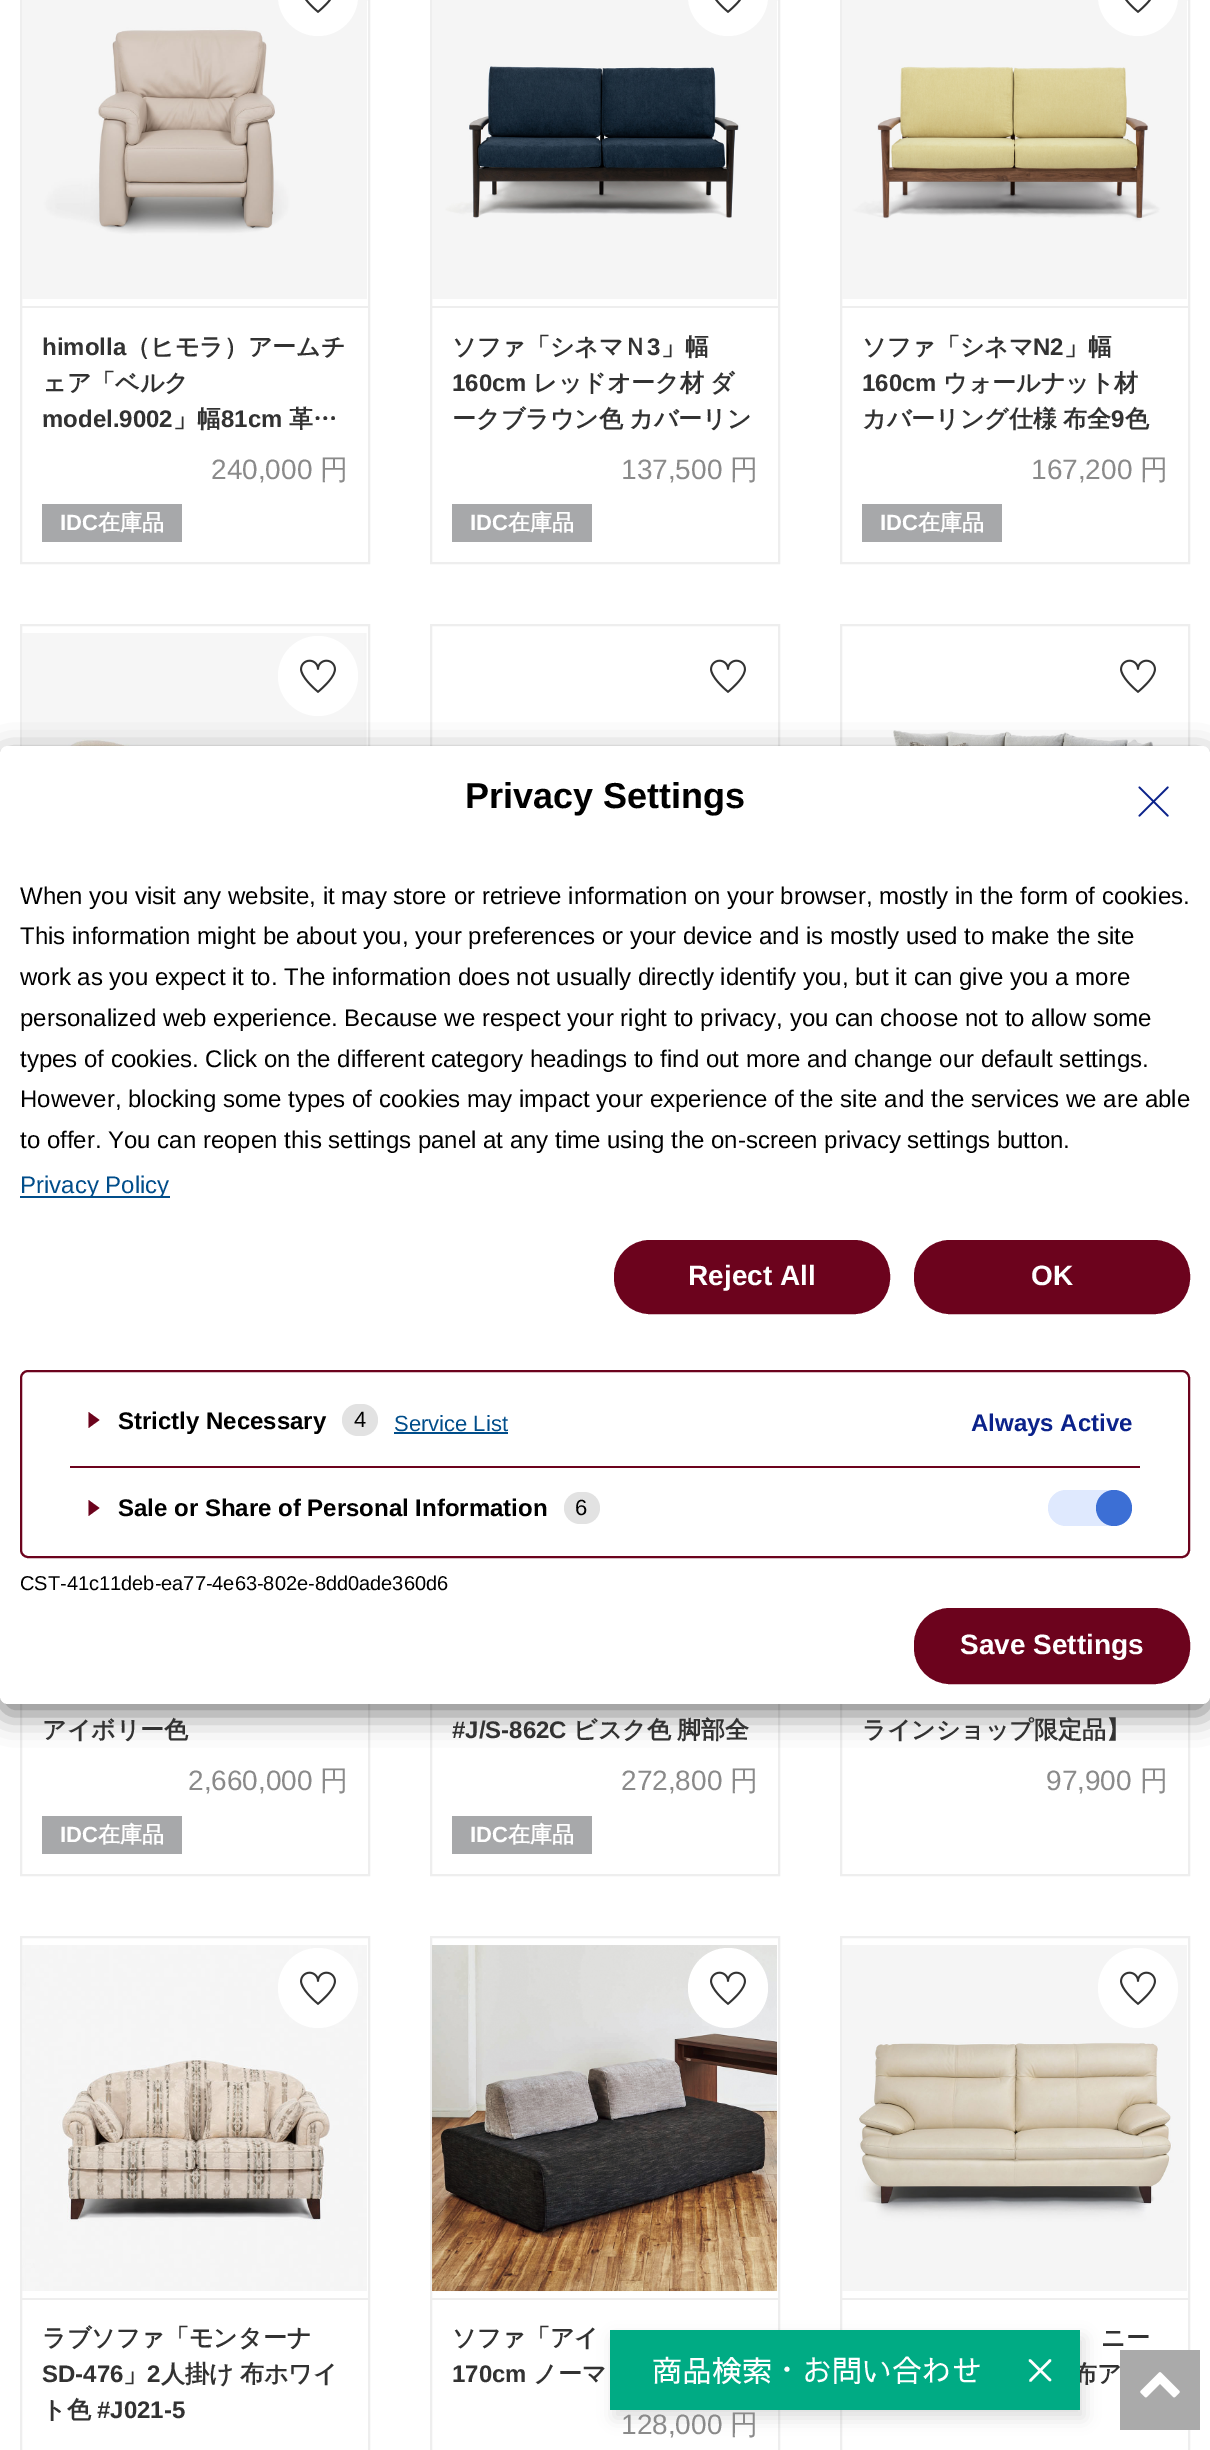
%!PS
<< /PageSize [1210 2450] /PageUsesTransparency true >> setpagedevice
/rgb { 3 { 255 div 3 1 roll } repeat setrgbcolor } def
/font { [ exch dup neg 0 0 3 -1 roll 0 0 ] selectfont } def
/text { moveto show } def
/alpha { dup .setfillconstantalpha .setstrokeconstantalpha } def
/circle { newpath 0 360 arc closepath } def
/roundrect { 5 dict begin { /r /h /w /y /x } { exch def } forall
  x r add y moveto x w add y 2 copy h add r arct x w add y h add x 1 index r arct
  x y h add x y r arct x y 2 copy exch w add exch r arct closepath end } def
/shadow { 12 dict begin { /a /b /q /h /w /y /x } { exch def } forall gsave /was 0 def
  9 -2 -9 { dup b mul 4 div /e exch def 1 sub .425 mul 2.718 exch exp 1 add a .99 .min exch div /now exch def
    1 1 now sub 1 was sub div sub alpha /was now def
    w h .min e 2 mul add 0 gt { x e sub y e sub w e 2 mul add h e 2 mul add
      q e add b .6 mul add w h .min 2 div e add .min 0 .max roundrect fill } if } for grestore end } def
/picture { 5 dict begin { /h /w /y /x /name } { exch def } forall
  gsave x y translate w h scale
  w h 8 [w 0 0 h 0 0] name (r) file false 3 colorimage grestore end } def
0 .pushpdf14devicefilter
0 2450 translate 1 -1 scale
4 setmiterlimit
255 255 255 rgb
0 0 1210 2450 rectfill
238 238 238 rgb
2 setlinewidth
21 -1 348 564 rectstroke
(img_02.rgb) 22 0 345 299 picture
255 255 255 rgb
278 -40 80 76 40 roundrect fill
(img_01.rgb) 305 0 26 13 picture
238 238 238 rgb
22 306 346 2 rectfill
167 168 170 rgb
42 504 140 38 rectfill
238 238 238 rgb
431 -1 348 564 rectstroke
(img_03.rgb) 432 0 345 299 picture
255 255 255 rgb
688 -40 80 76 40 roundrect fill
(img_01.rgb) 715 0 26 13 picture
238 238 238 rgb
432 306 346 2 rectfill
167 168 170 rgb
452 504 140 38 rectfill
238 238 238 rgb
841 -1 348 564 rectstroke
(img_04.rgb) 842 0 345 299 picture
255 255 255 rgb
1098 -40 80 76 40 roundrect fill
(img_01.rgb) 1125 0 26 13 picture
238 238 238 rgb
842 306 346 2 rectfill
167 168 170 rgb
862 504 140 38 rectfill
238 238 238 rgb
21 625 348 570 rectstroke
(img_05.rgb) 22 633 345 113 picture
255 255 255 rgb
318 676 40 circle fill
(img_06.rgb) 300 659 36 34 picture
238 238 238 rgb
431 625 348 570 rectstroke
(img_06.rgb) 710 659 36 34 picture
841 625 348 570 rectstroke
(img_06.rgb) 1120 659 36 34 picture
(img_07.rgb) 848 730 334 16 picture
21 1257 348 618 rectstroke
167 168 170 rgb
42 1816 140 38 rectfill
238 238 238 rgb
431 1257 348 618 rectstroke
167 168 170 rgb
452 1816 140 38 rectfill
238 238 238 rgb
841 1257 348 618 rectstroke
21 1937 348 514 rectstroke
(img_08.rgb) 22 1945 345 346 picture
255 255 255 rgb
318 1988 40 circle fill
(img_06.rgb) 300 1971 36 34 picture
238 238 238 rgb
22 2298 346 2 rectfill
431 1937 348 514 rectstroke
(img_09.rgb) 432 1945 346 347 picture
255 255 255 rgb
728 1988 40 circle fill
(img_06.rgb) 710 1971 36 34 picture
238 238 238 rgb
432 2298 346 2 rectfill
841 1937 348 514 rectstroke
(img_10.rgb) 842 1945 345 346 picture
255 255 255 rgb
1138 1988 40 circle fill
(img_06.rgb) 1120 1971 36 34 picture
238 238 238 rgb
842 2298 346 2 rectfill
170 170 170 rgb
1120 2350 80 80 rectfill
(img_11.rgb) 1140 2372 40 26 picture
0 0 0 rgb
0 756 1210 958 8 15 0.5 shadow
255 255 255 rgb
0 746 1210 958 8 roundrect fill
(img_12.rgb) 1138 786 31 31 picture
0 77 138 rgb
20 1196 150 2 rectfill
108 3 29 rgb
615 1241 274 72 35 roundrect gsave fill grestore
stroke
915 1241 274 72 35 roundrect gsave fill grestore
stroke
21 1371 1168 186 7 roundrect stroke
88.5 1428 moveto 11 -8 rlineto -11 -8 rlineto closepath fill
226 226 226 rgb
342 1404 36 32 16 roundrect fill
0 77 138 rgb
394 1432 114 2 rectfill
108 3 29 rgb
70 1466 1070 2 rectfill
88.5 1516 moveto 11 -8 rlineto -11 -8 rlineto closepath fill
226 226 226 rgb
564 1492 36 32 16 roundrect fill
223 233 254 rgb
1066 1490 moveto 48 0 rlineto 10 0 18 8 18 18 rcurveto 0 10 -8 18 -18 18 rcurveto -48 0 rlineto -10 0 -18 -8 -18 -18 rcurveto 0 -10 8 -18 18 -18 rcurveto closepath fill
60 111 213 rgb
1114 1508 18 circle fill
108 3 29 rgb
915 1609 274 74 35 roundrect gsave fill grestore
stroke
0 0 0 rgb
614 2338 470 80 0 8 0.12 shadow
/LiberationSans-Bold 24 font
50 50 50 rgb
(himolla) 42 355 text
/WenQuanYiZenHei-Bold 24 font
(（ヒモラ）アームチ) 126 355 text
(ェア「ベルク) 42 391 text
/LiberationSans-Bold 24 font
(model.9002) 42 427 text
/WenQuanYiZenHei-Bold 24 font
(」幅) 173 427 text
/LiberationSans-Bold 24 font
(81cm) 221 427 text
/WenQuanYiZenHei-Bold 24 font
(革…) 289 427 text
/LiberationSans-Regular 28 font
138 138 138 rgb
(240,000) 211 479 text
/WenQuanYiZenHei-Medium 28 font
(円) 320 479 text
/LiberationSans-Bold 22 font
255 255 255 rgb
(IDC) 60 530 text
/WenQuanYiZenHei-Bold 22 font
(在庫品) 98 530 text
/WenQuanYiZenHei-Bold 24 font
50 50 50 rgb
(ソファ「シネマＮ) 452 355 text
/LiberationSans-Bold 24 font
(3) 647 355 text
/WenQuanYiZenHei-Bold 24 font
(」幅) 661 355 text
/LiberationSans-Bold 24 font
(160cm) 452 391 text
/WenQuanYiZenHei-Bold 24 font
533 391 moveto -1 0 32 (レッドオーク材 ダ) widthshow
452 427 moveto -1 0 32 (ークブラウン色 カバーリン) widthshow
/LiberationSans-Regular 28 font
138 138 138 rgb
(137,500) 621 479 text
/WenQuanYiZenHei-Medium 28 font
(円) 730 479 text
/LiberationSans-Bold 22 font
255 255 255 rgb
(IDC) 470 530 text
/WenQuanYiZenHei-Bold 22 font
(在庫品) 508 530 text
/WenQuanYiZenHei-Bold 24 font
50 50 50 rgb
(ソファ「シネマ) 862 355 text
/LiberationSans-Bold 24 font
(N2) 1033 355 text
/WenQuanYiZenHei-Bold 24 font
(」幅) 1064 355 text
/LiberationSans-Bold 24 font
(160cm) 862 391 text
/WenQuanYiZenHei-Bold 24 font
(ウォールナット材) 943 391 text
862 427 moveto -1 0 32 (カバーリング仕様 布全) widthshow
/LiberationSans-Bold 24 font
(9) 1111 427 text
/WenQuanYiZenHei-Bold 24 font
(色) 1125 427 text
/LiberationSans-Regular 28 font
138 138 138 rgb
(167,200) 1031 479 text
/WenQuanYiZenHei-Medium 28 font
(円) 1140 479 text
/LiberationSans-Bold 22 font
255 255 255 rgb
(IDC) 880 530 text
/WenQuanYiZenHei-Bold 22 font
(在庫品) 918 530 text
/WenQuanYiZenHei-Bold 24 font
50 50 50 rgb
(アイボリー色) 42 1738 text
/LiberationSans-Regular 28 font
138 138 138 rgb
(2,660,000) 188 1790 text
/WenQuanYiZenHei-Medium 28 font
(円) 320 1790 text
/LiberationSans-Bold 22 font
255 255 255 rgb
(IDC) 60 1842 text
/WenQuanYiZenHei-Bold 22 font
(在庫品) 98 1842 text
/LiberationSans-Bold 24 font
50 50 50 rgb
(#J/S-862C) 452 1738 text
/WenQuanYiZenHei-Bold 24 font
573 1738 moveto -1 0 32 (ビスク色 脚部全) widthshow
/LiberationSans-Regular 28 font
138 138 138 rgb
(272,800) 621 1790 text
/WenQuanYiZenHei-Medium 28 font
(円) 730 1790 text
/LiberationSans-Bold 22 font
255 255 255 rgb
(IDC) 470 1842 text
/WenQuanYiZenHei-Bold 22 font
(在庫品) 508 1842 text
/WenQuanYiZenHei-Bold 24 font
50 50 50 rgb
(ラインショップ限定品】) 862 1738 text
/LiberationSans-Regular 28 font
138 138 138 rgb
(97,900) 1046 1790 text
/WenQuanYiZenHei-Medium 28 font
(円) 1140 1790 text
/WenQuanYiZenHei-Bold 24 font
50 50 50 rgb
(ラブソファ「モンターナ) 42 2346 text
/LiberationSans-Bold 24 font
(SD-476) 42 2382 text
/WenQuanYiZenHei-Bold 24 font
(」) 123 2382 text
/LiberationSans-Bold 24 font
(2) 147 2382 text
/WenQuanYiZenHei-Bold 24 font
161 2382 moveto -1 0 32 (人掛け 布ホワイ) widthshow
(ト色) 42 2418 text
/LiberationSans-Bold 24 font
(#J021-5) 97 2418 text
/WenQuanYiZenHei-Bold 24 font
(ソファ「アイ) 452 2346 text
/LiberationSans-Bold 24 font
(170cm) 452 2382 text
/WenQuanYiZenHei-Bold 24 font
(ノーマ) 533 2382 text
/LiberationSans-Regular 28 font
138 138 138 rgb
(128,000) 621 2434 text
/WenQuanYiZenHei-Medium 28 font
(円) 730 2434 text
/WenQuanYiZenHei-Bold 24 font
50 50 50 rgb
(ニー) 1101 2346 text
(布ア) 1073 2382 text
/LiberationSans-Bold 36 font
0 0 0 rgb
(Privacy Settings) 465 808 text
/LiberationSans-Regular 24 font
(When you visit any website, it may store or retrieve information on your browser, mostly in the form of cookies.) 20 904 text
(This information might be about you, your preferences or your device and is mostly used to make the site) 20 944 text
(work as you expect it to. The information does not usually directly identify you, but it can give you a more) 20 985 text
(personalized web experience. Because we respect your right to privacy, you can choose not to allow some) 20 1026 text
(types of cookies. Click on the different category headings to find out more and change our default settings.) 20 1067 text
(However, blocking some types of cookies may impact your experience of the site and the services we are able) 20 1107 text
(to offer. You can reopen this settings panel at any time using the on-screen privacy settings button.) 20 1148 text
0 77 138 rgb
(Privacy Policy) 20 1193 text
/LiberationSans-Bold 28 font
255 255 255 rgb
(Reject All) 688 1285 text
(OK) 1031 1285 text
/LiberationSans-Bold 24 font
0 0 0 rgb
(Strictly Necessary) 118 1429 text
/LiberationSans-Regular 22 font
(4) 354 1427 text
0 77 138 rgb
(Service List) 394 1431 text
/LiberationSans-Bold 24 font
11 34 138 rgb
(Always Active) 971 1431 text
0 0 0 rgb
(Sale or Share of Personal Information) 118 1516 text
/LiberationSans-Regular 22 font
(6) 575 1515 text
/LiberationSans-Regular 20 font
(CST-41c11deb-ea77-4e63-802e-8dd0ade360d6) 20 1590 text
/LiberationSans-Bold 28 font
255 255 255 rgb
(Save Settings) 960 1654 text
0 171 132 rgb
610 2330 470 80 rectfill
/SawarabiGothic-Regular 30 font
255 255 255 rgb
(商品検索・お問い合わせ) 652 2382 text
2.5 setlinewidth
1 setlinecap
1 setlinejoin
1030 2360.5 moveto 20 19.5 rlineto 1030.5 2380.5 moveto 19.5 -20 rlineto stroke
.poppdf14devicefilter showpage
